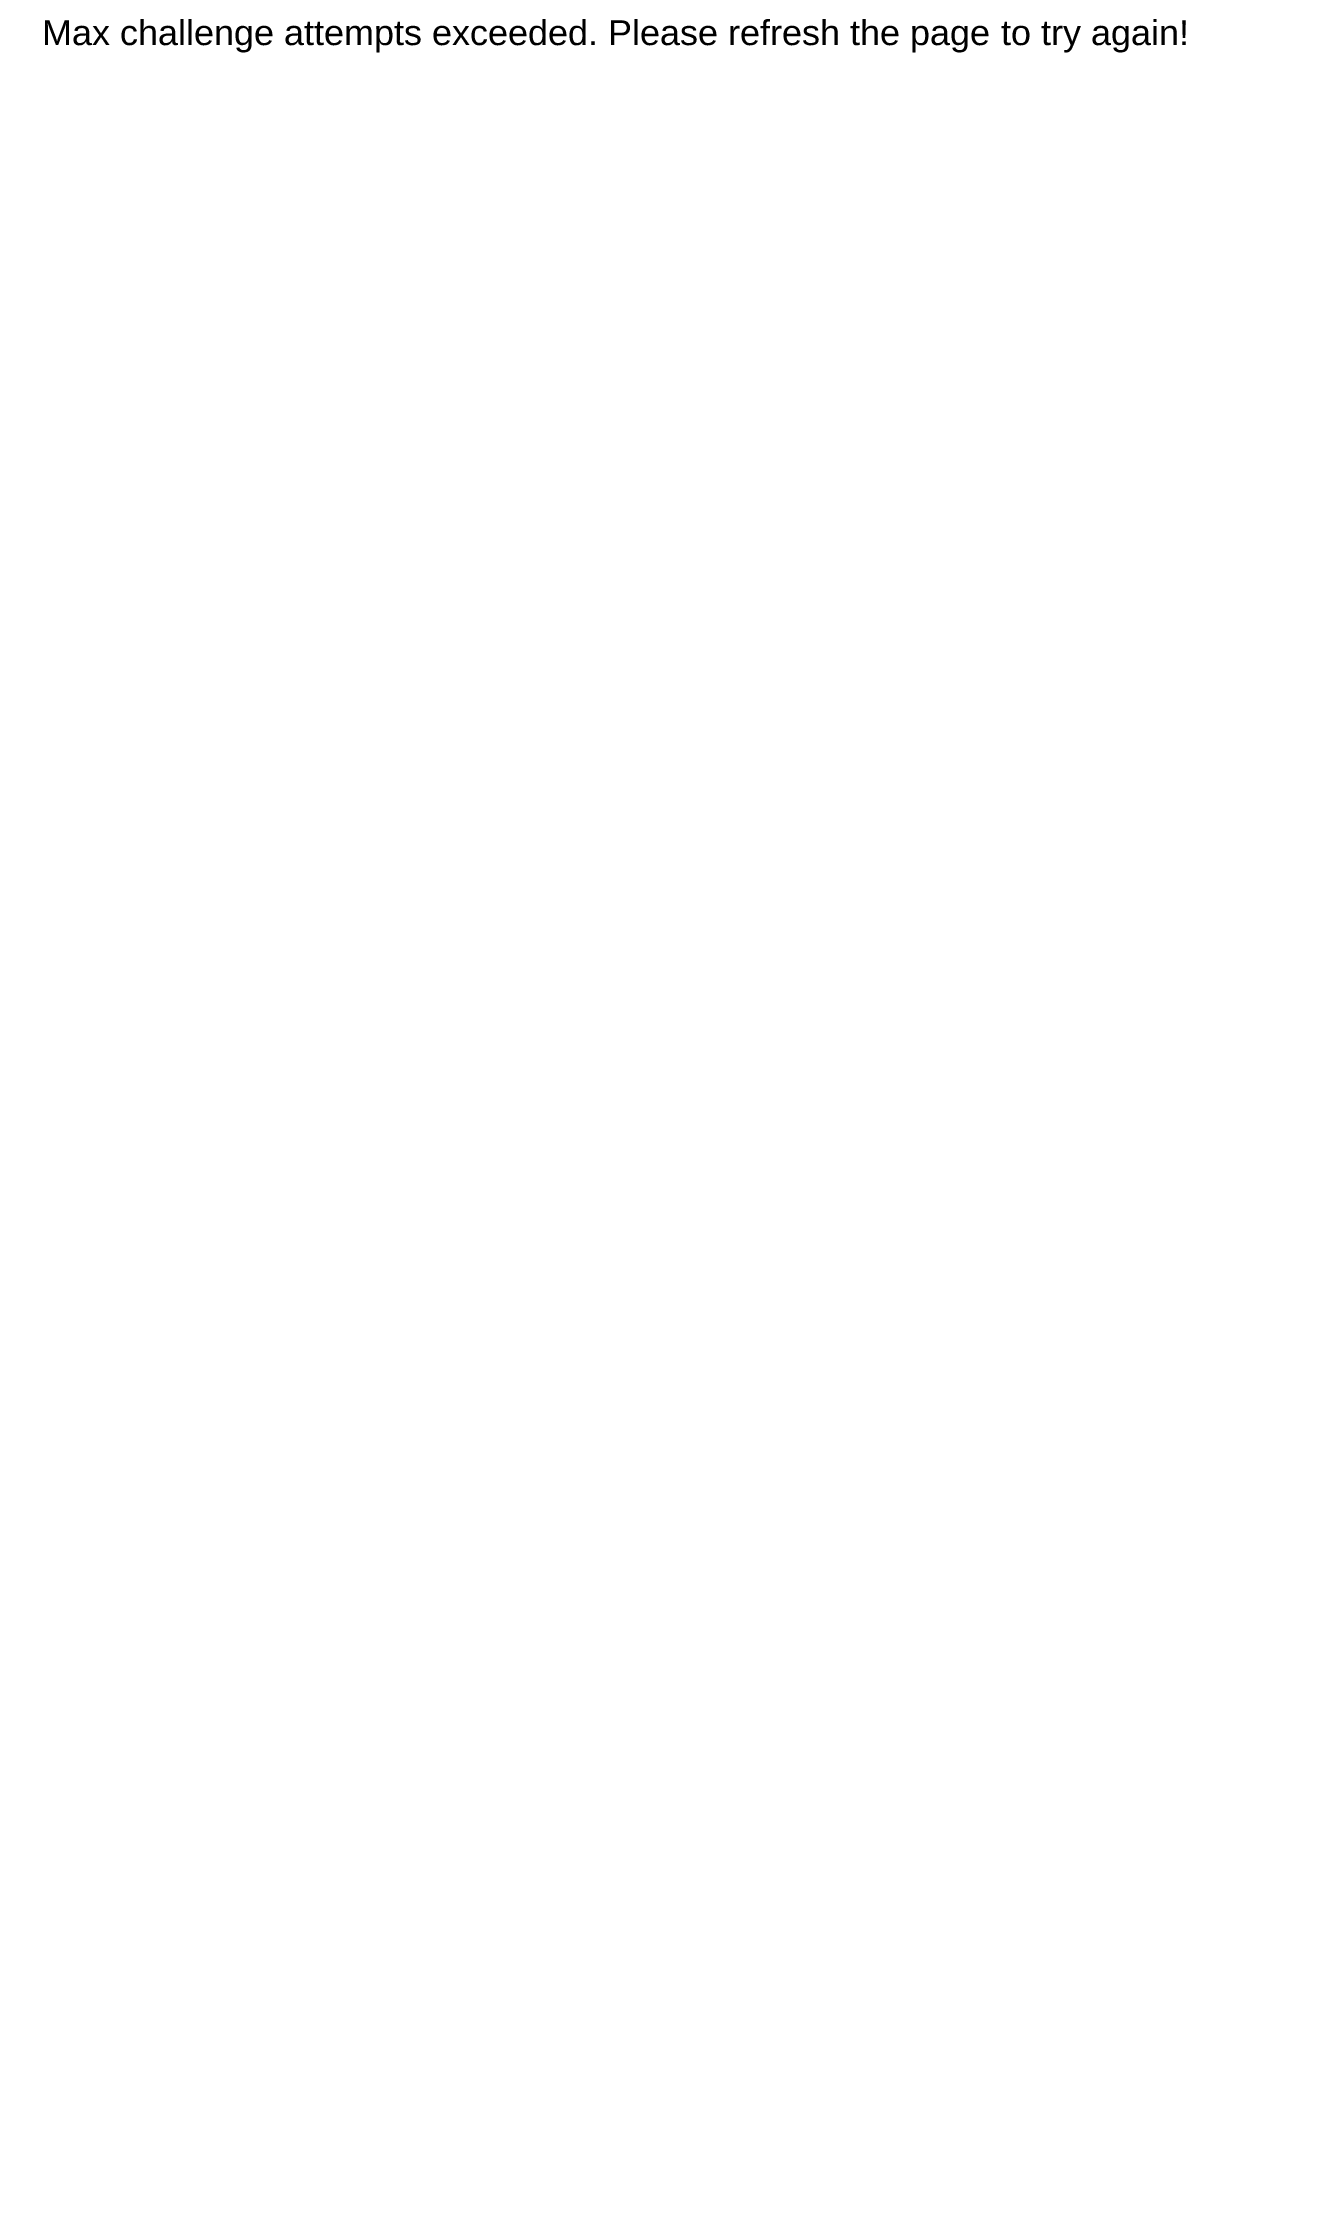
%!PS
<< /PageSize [1336 2224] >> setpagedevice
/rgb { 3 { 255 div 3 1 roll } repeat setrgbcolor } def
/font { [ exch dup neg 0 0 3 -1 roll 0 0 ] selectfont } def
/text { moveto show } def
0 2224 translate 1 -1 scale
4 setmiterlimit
255 255 255 rgb
0 0 1336 2224 rectfill
/LiberationSans-Regular 36 font
0 0 0 rgb
(Max challenge attempts exceeded. Please refresh the page to try again!) 42 45 text
showpage
